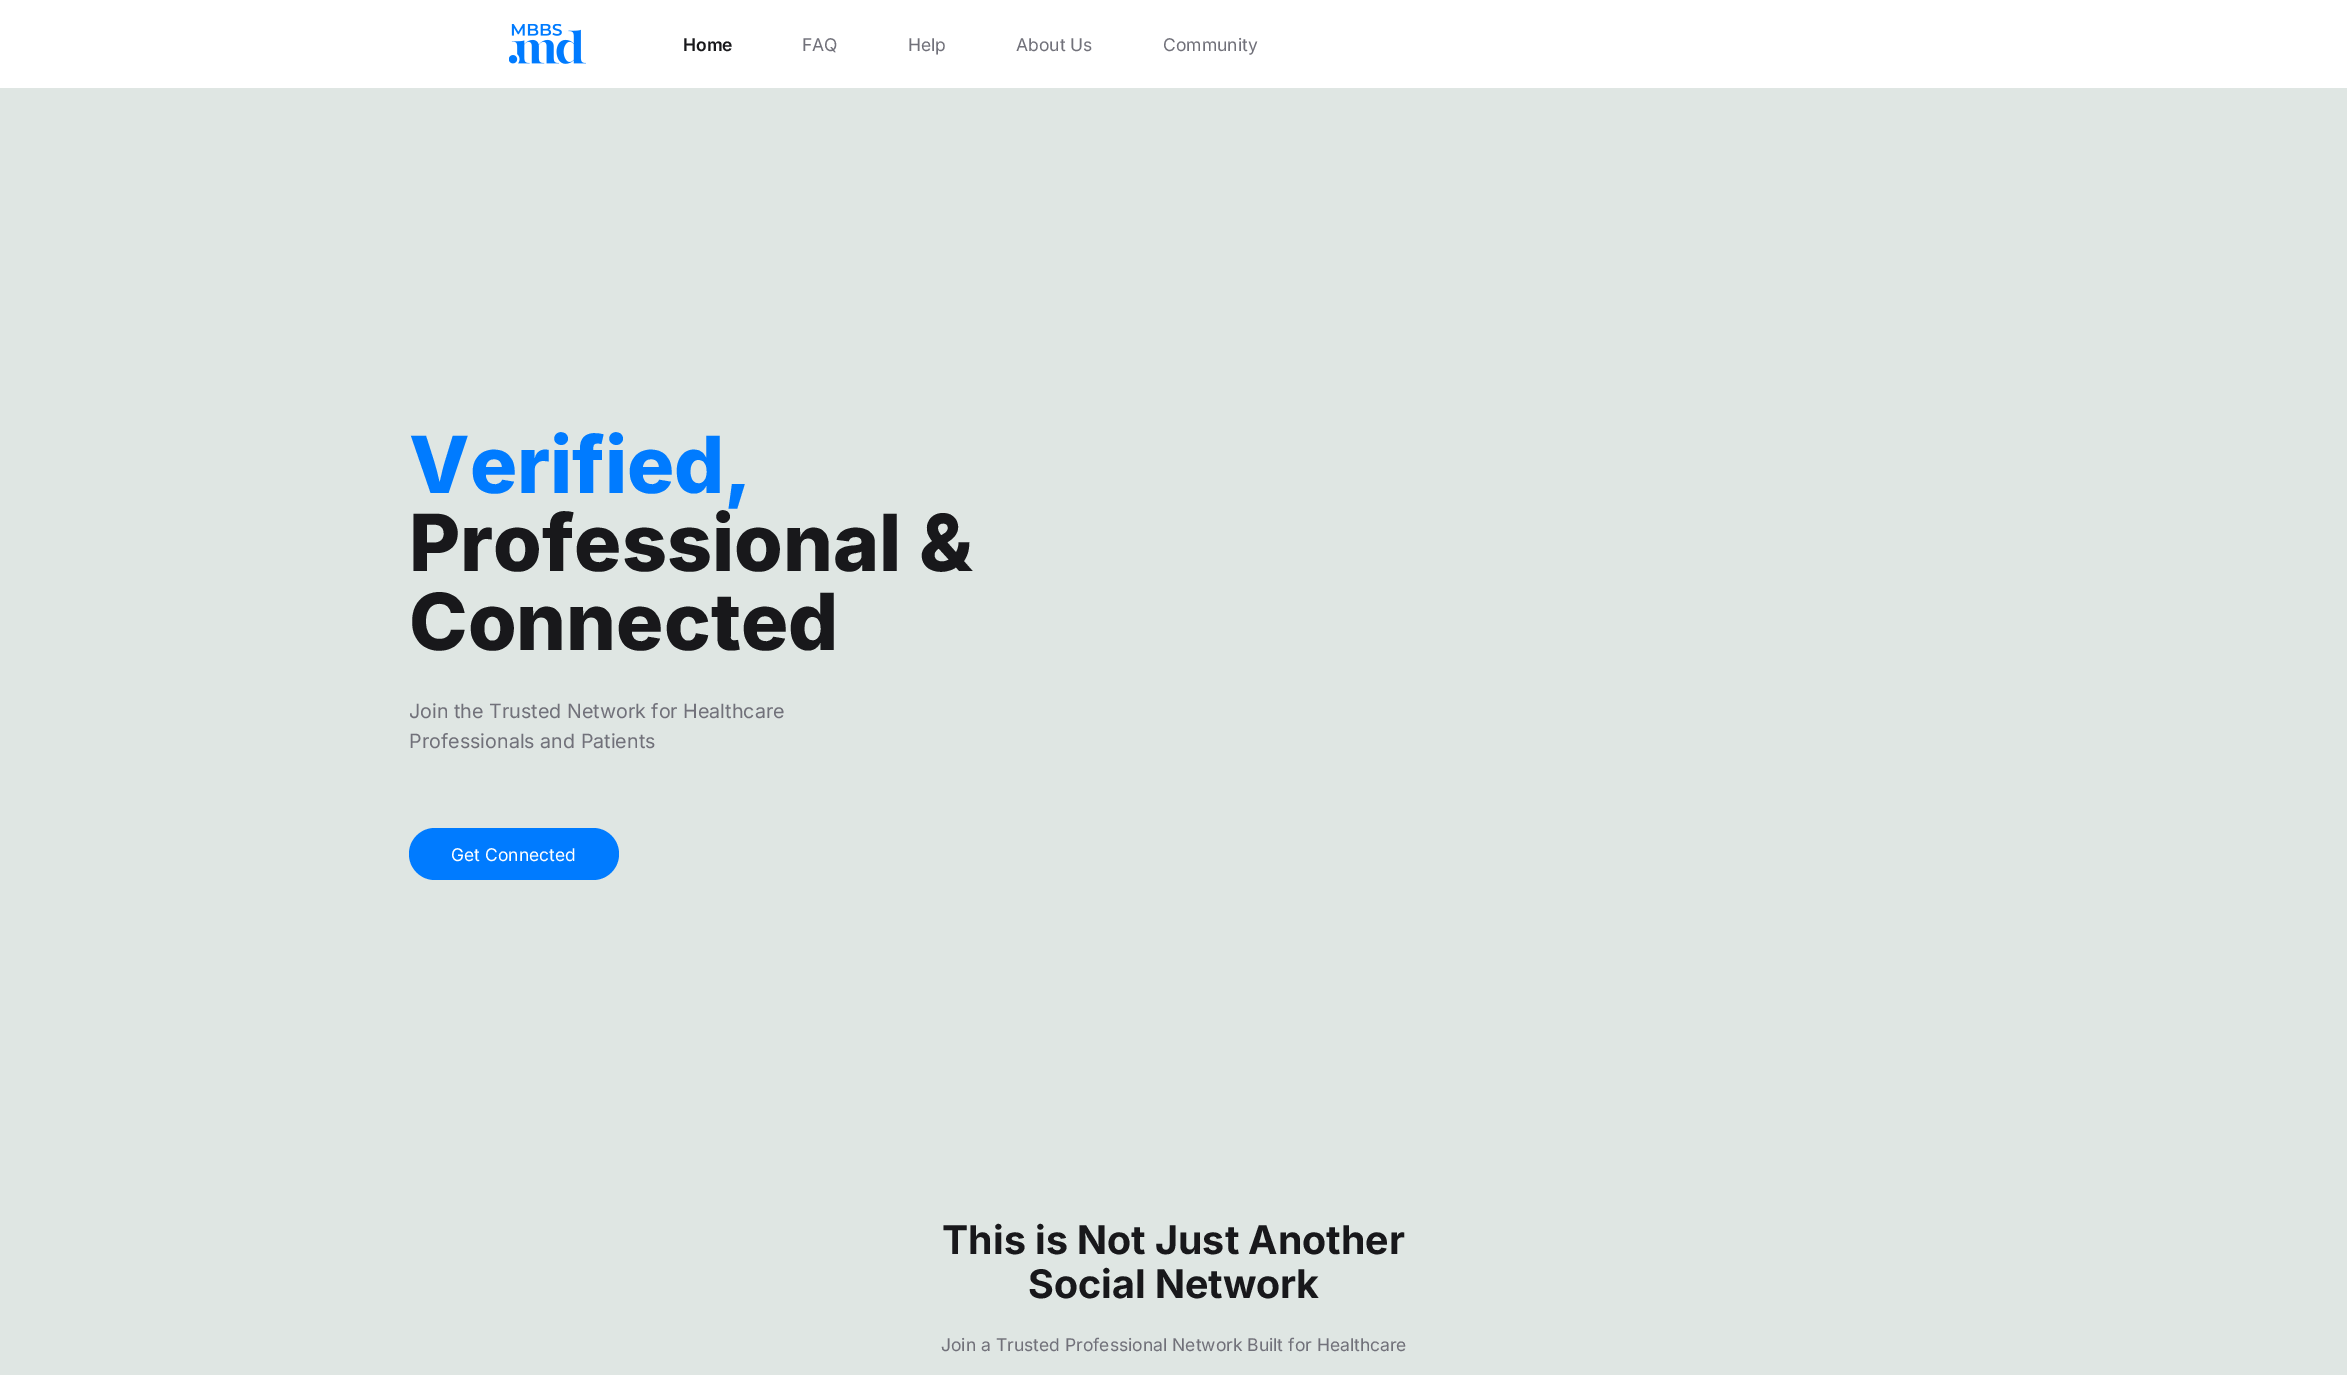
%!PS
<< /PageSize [2347 1375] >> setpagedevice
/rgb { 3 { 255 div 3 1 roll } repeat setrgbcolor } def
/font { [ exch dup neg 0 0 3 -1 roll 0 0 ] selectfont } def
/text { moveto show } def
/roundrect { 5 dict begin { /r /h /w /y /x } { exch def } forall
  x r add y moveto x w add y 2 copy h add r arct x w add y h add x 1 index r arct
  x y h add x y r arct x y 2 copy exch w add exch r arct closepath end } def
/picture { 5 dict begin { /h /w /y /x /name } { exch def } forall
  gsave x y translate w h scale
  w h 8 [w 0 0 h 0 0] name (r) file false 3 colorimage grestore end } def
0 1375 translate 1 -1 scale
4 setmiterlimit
223 230 227 rgb
0 0 2347 1375 rectfill
255 255 255 rgb
0 0 2347 88 rectfill
(img_01.rgb) 509 24 77 40 picture
0 123 255 rgb
409 828 210 52 26 roundrect fill
/Inter-SemiBold 17.5 font
24 24 27 rgb
(Home) 683 51 text
/Inter-Regular 17.5 font
113 113 122 rgb
(FAQ) 802 51 text
(Help) 908 51 text
(About Us) 1016 51 text
(Community) 1163 51 text
/Inter-ExtraBold 78.75 font
0 123 255 rgb
(Verified,) 409 493 text
24 24 27 rgb
(Professional &) 409 571 text
(Connected) 409 650 text
/Inter-Regular 19.7 font
113 113 122 rgb
(Join the Trusted Network for Healthcare) 409 718 text
(Professionals and Patients) 409 748 text
/Inter-Regular 17.5 font
255 255 255 rgb
(Get Connected) 451 861 text
/Inter-Bold 39.4 font
24 24 27 rgb
(This is Not Just Another) 942 1254 text
(Social Network) 1028 1298 text
/Inter-Regular 17.5 font
113 113 122 rgb
(Join a Trusted Professional Network Built for Healthcare) 941 1351 text
showpage
